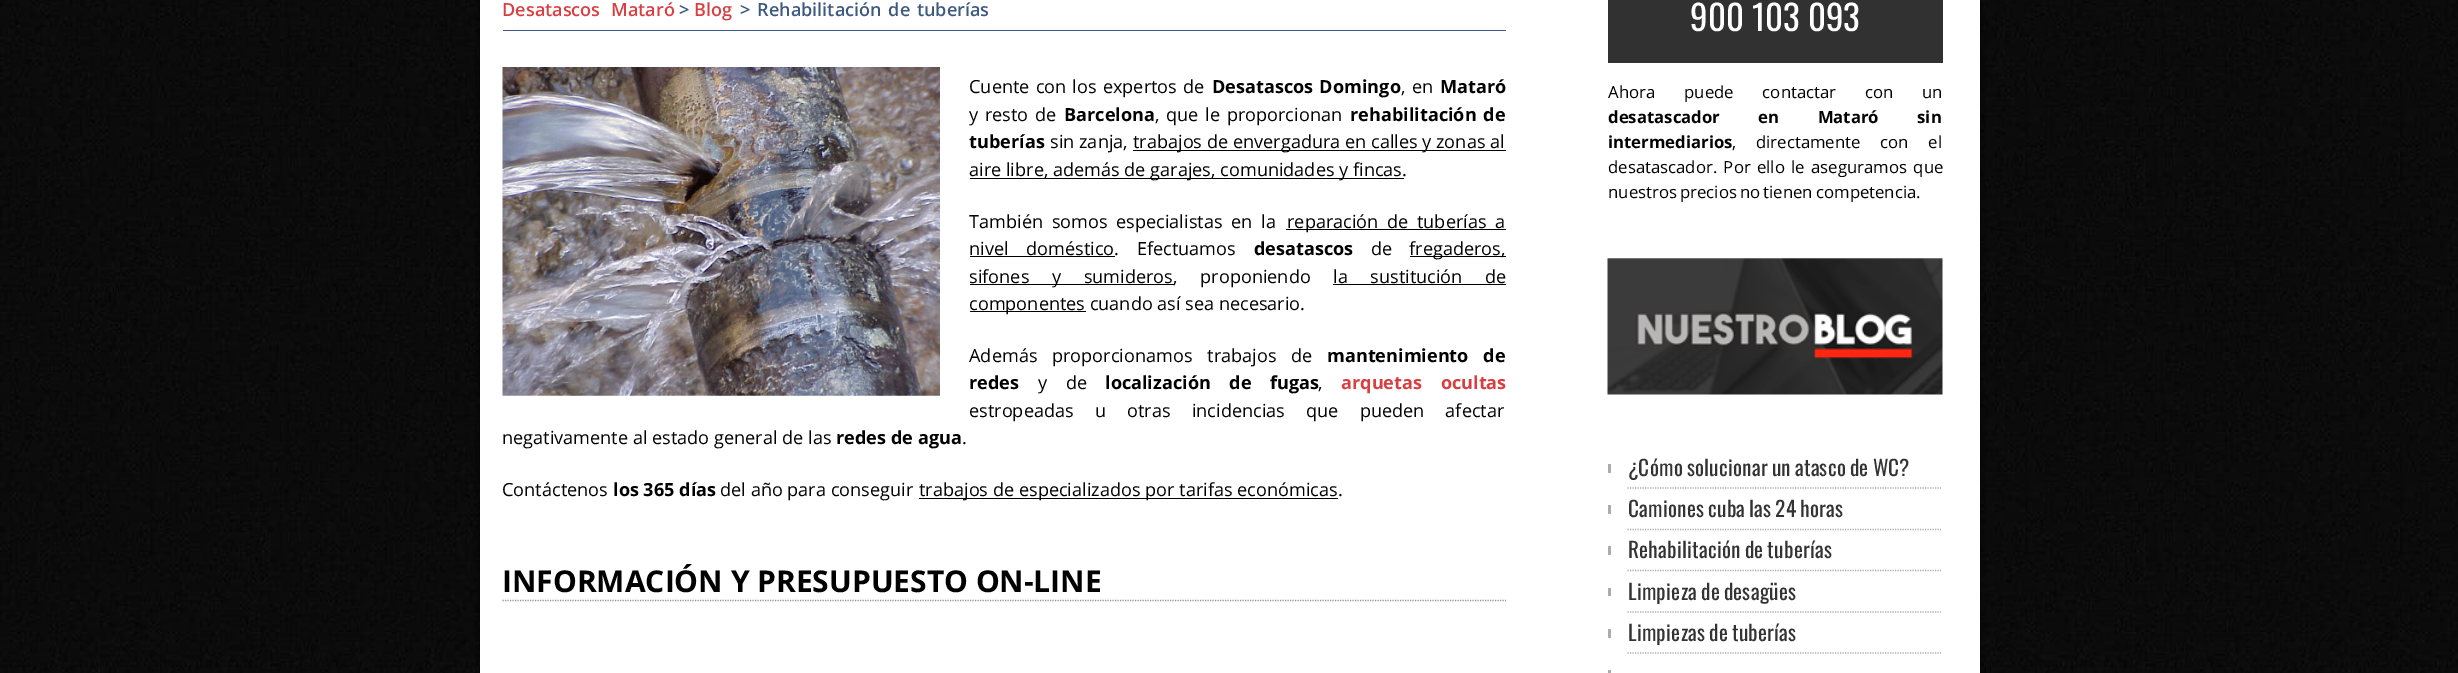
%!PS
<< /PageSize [2458 673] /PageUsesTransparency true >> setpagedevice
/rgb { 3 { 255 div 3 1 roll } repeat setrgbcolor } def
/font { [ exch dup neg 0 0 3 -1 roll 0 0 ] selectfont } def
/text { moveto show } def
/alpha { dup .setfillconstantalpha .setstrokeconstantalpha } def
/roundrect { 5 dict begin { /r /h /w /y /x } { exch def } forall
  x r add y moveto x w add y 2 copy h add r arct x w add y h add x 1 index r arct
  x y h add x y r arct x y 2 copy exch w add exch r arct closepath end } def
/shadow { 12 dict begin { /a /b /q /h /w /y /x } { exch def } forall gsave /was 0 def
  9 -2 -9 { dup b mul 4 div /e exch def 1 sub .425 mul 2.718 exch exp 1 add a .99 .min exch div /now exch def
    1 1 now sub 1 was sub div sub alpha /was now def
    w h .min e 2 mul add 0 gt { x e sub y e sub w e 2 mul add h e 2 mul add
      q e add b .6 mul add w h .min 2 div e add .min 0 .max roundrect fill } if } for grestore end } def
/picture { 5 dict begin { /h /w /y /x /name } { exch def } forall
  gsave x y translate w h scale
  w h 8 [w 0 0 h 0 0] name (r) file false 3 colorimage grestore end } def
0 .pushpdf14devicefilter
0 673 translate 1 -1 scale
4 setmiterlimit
255 255 255 rgb
0 0 2458 673 rectfill
(img_01.rgb) 0 0 2458 673 picture
0 0 0 rgb
480 -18 1500 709 0 6 0.7 shadow
255 255 255 rgb
480 0 1500 673 rectfill
61 89 129 rgb
503 30 1003 1 rectfill
(img_02.rgb) 502 67 438 329 picture
0 0 0 rgb
1133 150 373 1 rectfill
970 178 434 1 rectfill
1286 229 220 1 rectfill
970 256 145 1 rectfill
1410 256 96 1 rectfill
970 284 204 1 rectfill
1333 284 173 1 rectfill
970 311 116 1 rectfill
919 498 419 1 rectfill
147 146 146 rgb
1.2 setlinewidth
[1.25 1.25] 0 setdash
502.5 600.5 moveto 1003.5 0 rlineto stroke
49 49 49 rgb
1608 0 335 63 rectfill
(img_03.rgb) 1607 258 336 137 picture
173 171 171 rgb
1627.5 488 moveto 313.5 0 rlineto stroke
1608 464 3 9 rectfill
1627.5 529.5 moveto 313.5 0 rlineto stroke
1608 505 3 9 rectfill
1627.5 570.5 moveto 313.5 0 rlineto stroke
1608 546 3 9 rectfill
1627.5 612 moveto 313.5 0 rlineto stroke
1608 588 3 8 rectfill
1627.5 653 moveto 313.5 0 rlineto stroke
1608 629 3 9 rectfill
1608 670 3 3 rectfill
/OpenSans-SemiBold 18.1 font
216 63 67 rgb
502 16 moveto 6 0 32 (Desatascos Mataró) widthshow
61 89 129 rgb
(>) 679 16 text
216 63 67 rgb
(Blog) 694 16 text
61 89 129 rgb
740 16 moveto 2 0 32 (> Rehabilitación de tuberías) widthshow
/OpenSans-Regular 18.1 font
0 0 0 rgb
969 93 moveto 1.5 0 32 (Cuente con los expertos de) widthshow
/OpenSans-Bold 18.1 font
1212 93 moveto 1.5 0 32 (Desatascos Domingo) widthshow
/OpenSans-Regular 18.1 font
1401 93 moveto 1.5 0 32 (, en) widthshow
/OpenSans-Bold 18.1 font
(Mataró) 1440 93 text
/OpenSans-Regular 18.1 font
969 121 moveto 2 0 32 (y resto de) widthshow
/OpenSans-Bold 18.1 font
(Barcelona) 1064 121 text
/OpenSans-Regular 18.1 font
1155 121 moveto 2 0 32 (, que le proporcionan) widthshow
/OpenSans-Bold 18.1 font
1350 121 moveto 2 0 32 (rehabilitación de) widthshow
(tuberías) 969 148 text
/OpenSans-Regular 18.1 font
(sin zanja,) 1050 148 text
(trabajos de envergadura en calles y zonas al) 1133 148 text
(aire libre, además de garajes, comunidades y fincas.) 969 176 text
969 228 moveto 4 0 32 (También somos especialistas en la) widthshow
1287 228 moveto 4 0 32 (reparación de tuberías a) widthshow
969 255 moveto 13 0 32 (nivel doméstico. Efectuamos) widthshow
/OpenSans-Bold 18.1 font
(desatascos) 1254 255 text
/OpenSans-Regular 18.1 font
(de) 1371 255 text
(fregaderos,) 1409 255 text
969 283 moveto 18 0 32 (sifones y sumideros, proponiendo) widthshow
1333 283 moveto 18 0 32 (la sustitución de) widthshow
(componentes cuando así sea necesario.) 969 310 text
969 362 moveto 10 0 32 (Además proporcionamos trabajos de) widthshow
/OpenSans-Bold 18.1 font
1327 362 moveto 10 0 32 (mantenimiento de) widthshow
(redes) 969 389 text
/OpenSans-Regular 18.1 font
1038 389 moveto 14 0 32 (y de) widthshow
/OpenSans-Bold 18.1 font
1105 389 moveto 14 0 32 (localización de fugas) widthshow
/OpenSans-Regular 18.1 font
(,) 1318 389 text
/OpenSans-Bold 18.1 font
216 63 67 rgb
1341 389 moveto 14 0 32 (arquetas ocultas) widthshow
/OpenSans-Regular 18.1 font
0 0 0 rgb
969 417 moveto 16.5 0 32 (estropeadas u otras incidencias que pueden afectar) widthshow
(negativamente al estado general de las) 502 444 text
/OpenSans-Bold 18.1 font
(redes de agua) 836 444 text
/OpenSans-Regular 18.1 font
(.) 962 444 text
(Contáctenos) 502 496 text
/OpenSans-Bold 18.1 font
(los 365 días) 613 496 text
/OpenSans-Regular 18.1 font
(del año para conseguir) 720 496 text
(trabajos de especializados por tarifas económicas.) 919 496 text
/OpenSans-Bold 30 font
(INFORMACIÓN Y PRESUPUESTO ON-LINE) 502 592 text
/Oswald-Regular 35 font
255 255 255 rgb
(900 103 093) 1690 31 text
/OpenSans-Regular 16.75 font
0 0 0 rgb
1608 98 moveto 24.5 0 32 (Ahora puede contactar con un) widthshow
/OpenSans-Bold 16.75 font
1608 123 moveto 34 0 32 (desatascador en Mataró sin) widthshow
(intermediarios) 1608 148 text
/OpenSans-Regular 16.75 font
1732 148 moveto 15.5 0 32 (, directamente con el) widthshow
1608 173 moveto 2 0 32 (desatascador. Por ello le aseguramos que) widthshow
1608 198 moveto -1.25 0 32 (nuestros precios no tienen competencia.) widthshow
/Oswald-Regular 21.25 font
51 51 51 rgb
1628 476 moveto -1.25 0 32 0.25 0 (¿Cómo solucionar un atasco de WC?) awidthshow
1628 517 moveto -1.25 0 32 0.25 0 (Camiones cuba las 24 horas) awidthshow
1628 558 moveto -1.25 0 32 0.25 0 (Rehabilitación de tuberías) awidthshow
1628 600 moveto -1.25 0 32 0.25 0 (Limpieza de desagües) awidthshow
1628 641 moveto -1.25 0 32 0.25 0 (Limpiezas de tuberías) awidthshow
.poppdf14devicefilter showpage
